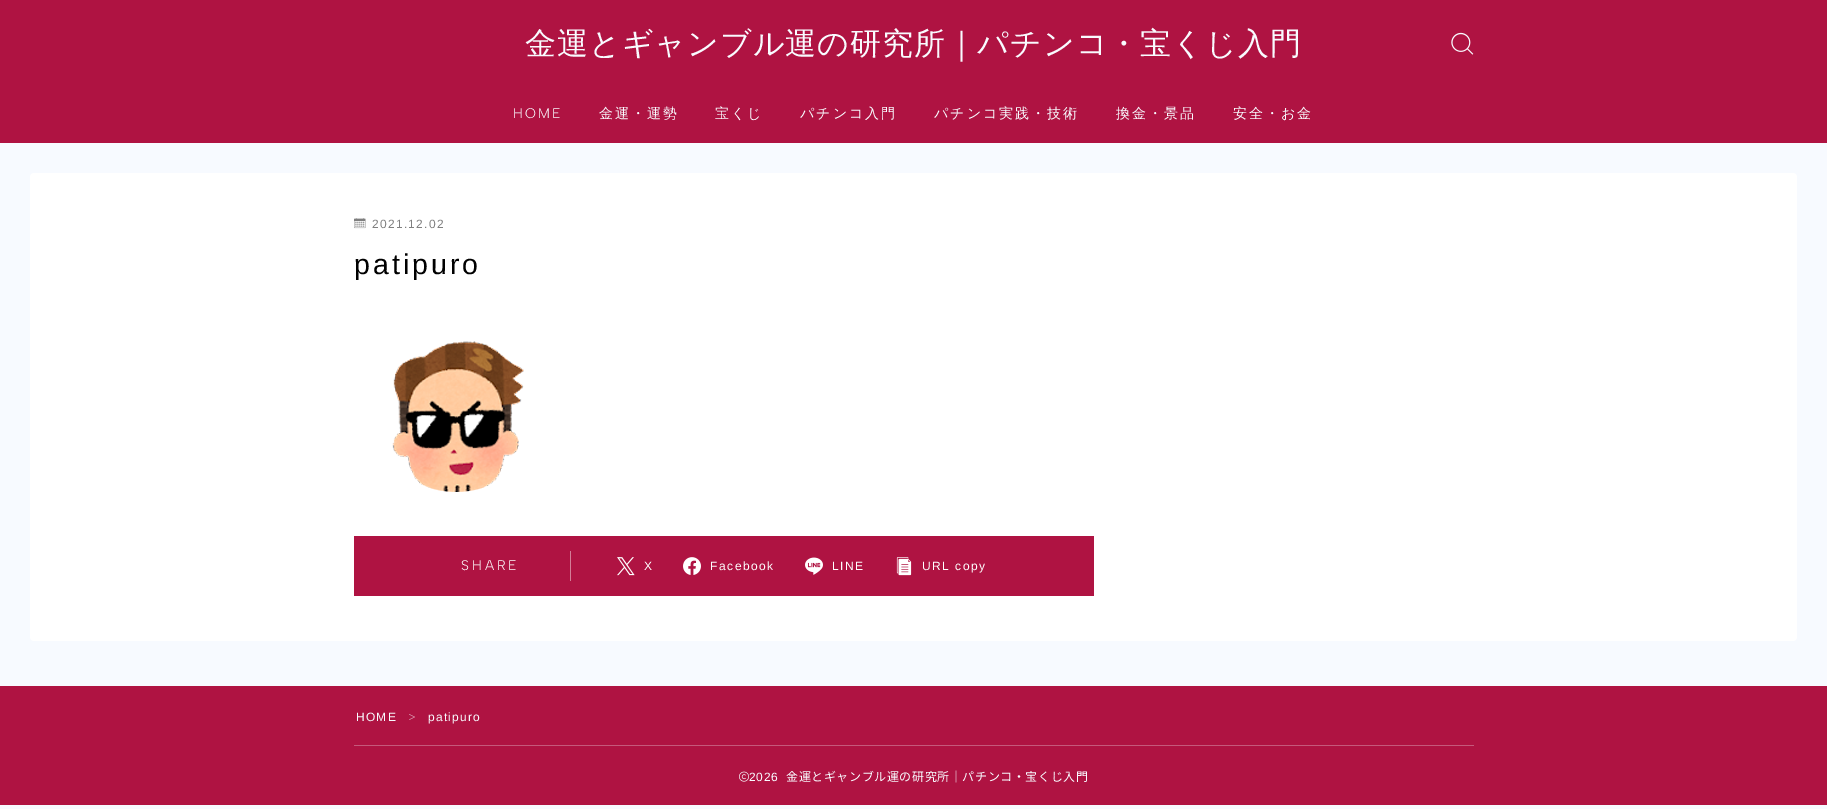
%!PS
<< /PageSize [1827 809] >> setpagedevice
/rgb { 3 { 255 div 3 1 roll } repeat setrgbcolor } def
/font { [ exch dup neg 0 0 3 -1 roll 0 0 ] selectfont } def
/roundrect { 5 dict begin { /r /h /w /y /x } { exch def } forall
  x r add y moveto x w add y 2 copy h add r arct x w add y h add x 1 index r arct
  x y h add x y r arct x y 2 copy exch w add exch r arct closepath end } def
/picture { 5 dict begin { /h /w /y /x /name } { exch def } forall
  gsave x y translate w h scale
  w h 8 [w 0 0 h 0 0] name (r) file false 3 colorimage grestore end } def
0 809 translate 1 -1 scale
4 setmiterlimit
247 250 255 rgb
0 0 1827 809 rectfill
175 19 66 rgb
0 0 1827 143 rectfill
(img_01.rgb) 1451 32 23 23 picture
255 255 255 rgb
30 173 1767 468 4 roundrect fill
(img_02.rgb) 354 218 12 11 picture
(img_03.rgb) 392 341 132 151 picture
175 19 66 rgb
354 536 740 60 rectfill
211 125 151 rgb
570 551 1 30 rectfill
(img_04.rgb) 617 557 18 19 picture
(img_05.rgb) 683 557 18 18 picture
(img_06.rgb) 805 557 18 18 picture
(img_07.rgb) 896 557 16 19 picture
175 19 66 rgb
0 686 1827 119 rectfill
197 89 123 rgb
354 745 1120 1 rectfill
(img_08.rgb) 739 771 10 11 picture
/WenQuanYiZenHei-Medium 31 font
249 251 255 rgb
525 54 moveto 1 0 (金運とギャンブル運の研究所｜パチンコ・宝くじ入門) ashow
/AlbertSans-Light 14 font
513 118 moveto 2 0 (HOME) ashow
/WenQuanYiZenHei-Medium 14 font
599 118 moveto 2 0 (金運・運勢) ashow
715 118 moveto 2 0 (宝くじ) ashow
800 118 moveto 2 0 (パチンコ入門) ashow
934 118 moveto 2 0 (パチンコ実践・技術) ashow
1116 118 moveto 2 0 (換金・景品) ashow
1233 118 moveto 2 0 (安全・お金) ashow
/LiberationSans-Regular 12 font
128 128 128 rgb
372 228 moveto 1.25 0 (2021.12.02) ashow
/LiberationSans-Regular 28.5 font
0 0 0 rgb
354 274 moveto 3 0 (patipuro) ashow
/AlbertSans-Light 14 font
255 255 255 rgb
461 570 moveto 3 0 (SHARE) ashow
/LiberationSans-Regular 12 font
644 570 moveto 1.5 0 (X) ashow
710 570 moveto 1.5 0 (Facebook) ashow
832 570 moveto 1.5 0 (LINE) ashow
922 570 moveto 1.5 0 (URL copy) ashow
249 251 255 rgb
356 721 moveto 1.25 0 (HOME) ashow
/NotoSansCJKJP-Regular 8 font
227 181 198 rgb
408 720 moveto 1 0 (＞) ashow
/LiberationSans-Regular 12 font
249 251 255 rgb
428 721 moveto 1.25 0 (patipuro) ashow
749 781 moveto 0.6 0 (2026) ashow
/NotoSansCJKJP-Regular 12 font
786 781 moveto 0.6 0 (金運とギャンブル運の研究所｜パチンコ・宝くじ入門) ashow
showpage
